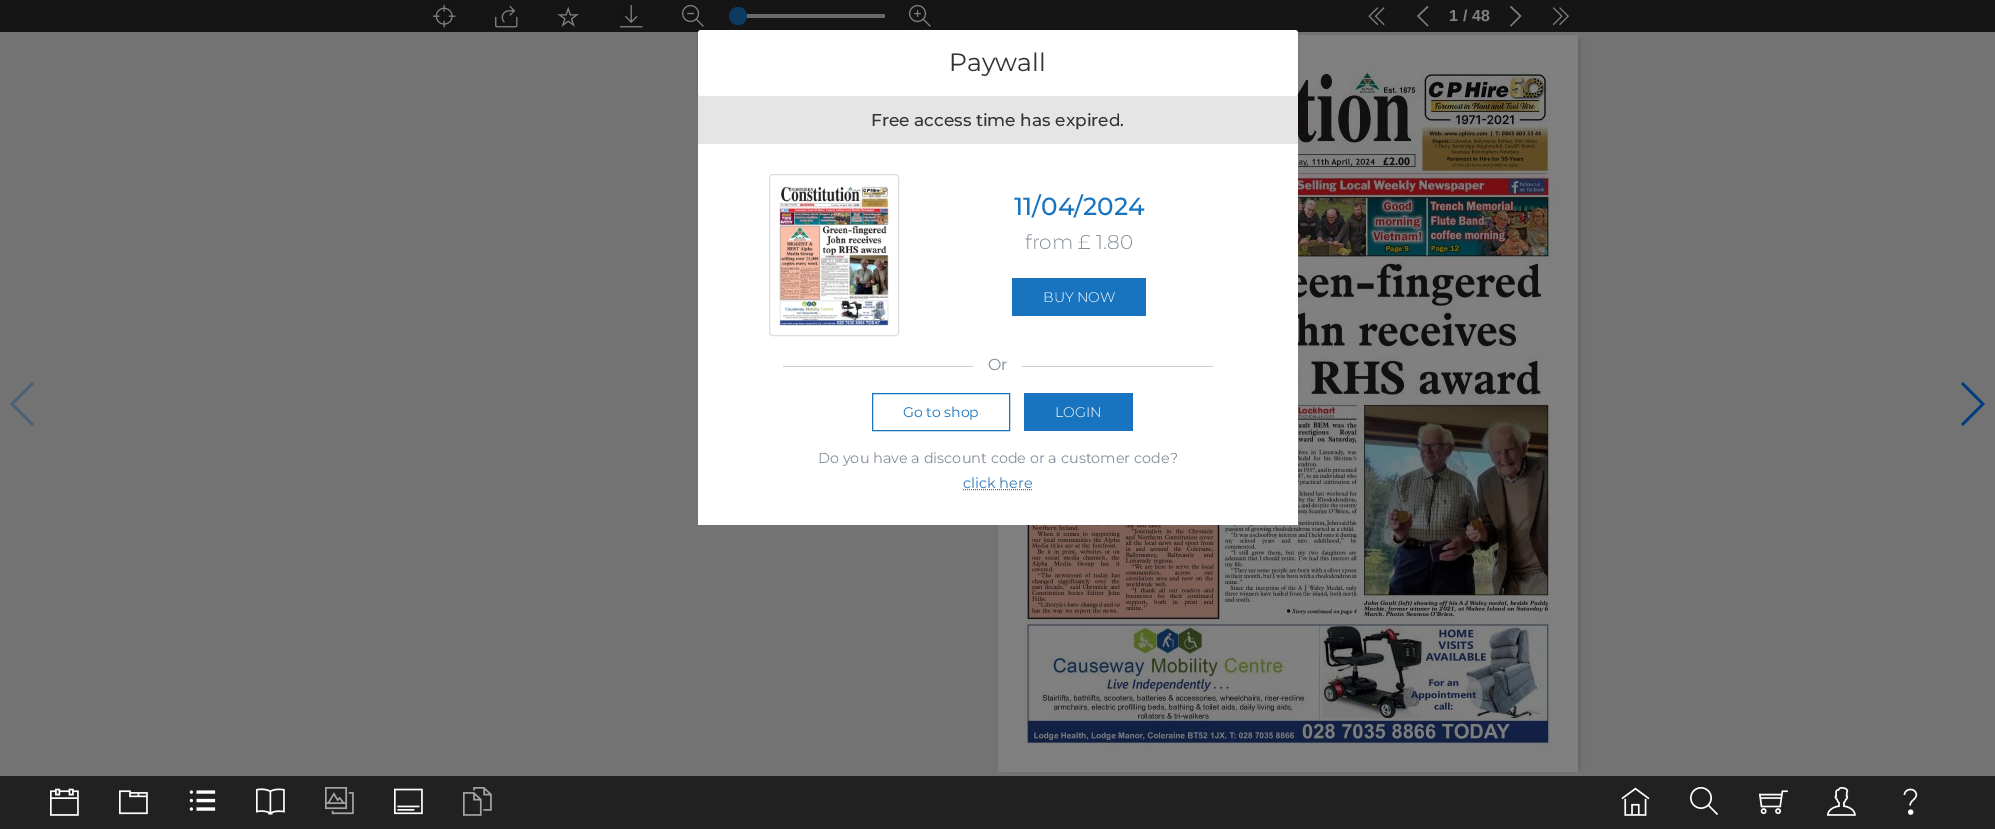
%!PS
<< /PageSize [1995 829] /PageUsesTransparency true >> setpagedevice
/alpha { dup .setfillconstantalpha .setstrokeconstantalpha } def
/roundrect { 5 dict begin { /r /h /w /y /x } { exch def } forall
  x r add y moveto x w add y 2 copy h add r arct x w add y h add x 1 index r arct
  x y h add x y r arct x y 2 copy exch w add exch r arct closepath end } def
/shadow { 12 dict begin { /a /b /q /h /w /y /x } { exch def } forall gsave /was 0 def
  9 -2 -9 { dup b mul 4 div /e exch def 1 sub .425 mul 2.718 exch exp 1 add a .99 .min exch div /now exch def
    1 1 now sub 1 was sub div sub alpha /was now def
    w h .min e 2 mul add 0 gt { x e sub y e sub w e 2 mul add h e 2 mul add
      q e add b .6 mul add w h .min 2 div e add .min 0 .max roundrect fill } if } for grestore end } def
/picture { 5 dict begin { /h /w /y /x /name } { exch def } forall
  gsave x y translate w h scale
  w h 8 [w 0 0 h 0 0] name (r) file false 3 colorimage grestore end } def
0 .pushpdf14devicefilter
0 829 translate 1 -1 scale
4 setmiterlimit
0.451 setgray
0 0 1995 829 rectfill
0 setgray
1007 39 574 731 0 3 0.14 shadow
0.082 setgray
0 0 1995 32 rectfill
(img1.rgb) 432 4 24 24 picture
(img2.rgb) 495 5 23 23 picture
(img3.rgb) 557 6 22 21 picture
(img4.rgb) 620 5 23 23 picture
(img5.rgb) 682 5 22 22 picture
0.416 setgray
729 14 156 4 1.5 roundrect fill
0.047 0.227 0.376 setrgbcolor
newpath 738 16 9 0 360 arc closepath fill
(img6.rgb) 909 5 22 22 picture
(img7.rgb) 1368 7 17 19 picture
0.502 setgray
newpath 1419 16 moveto 1428.5 25.5 lineto 1427.5 26.5 lineto 1417 16 lineto 1427.5 6 lineto 1428.5 7 lineto closepath fill
/LiberationSans-Bold [16 0 0 -16 0 0] selectfont
1449 21 moveto (1) show
1463 21 moveto (/ 48) show
newpath 1521.5 16 moveto 1511 26.5 lineto 1510 25.5 lineto 1519.5 16 lineto 1510 7 lineto 1511 6 lineto closepath fill
(img8.rgb) 1552 7 17 19 picture
0.294 0.376 0.467 setrgbcolor
newpath 10 404 moveto 32 382 lineto 34 384 lineto 14 404 lineto 34 424 lineto 32 426 lineto closepath fill
(img9.rgb) 998 35 580 737 picture
0 0.239 0.502 setrgbcolor
newpath 1985 404 moveto 1963 426 lineto 1961 424 lineto 1981 404 lineto 1961 384 lineto 1963 382 lineto closepath fill
0 setgray
698 31 600 67 3 1.5 0.15 shadow
1 setgray
698 30 600 67 3 roundrect fill
0.898 setgray
698 96 600 48 rectfill
/Montserrat-Regular [25 0 0 -25 0 0] selectfont
0.2 setgray
949 71 moveto (Paywall) show
/Montserrat-Medium [17 0 0 -17 0 0] selectfont
871 126 moveto (Free access time has expired.) show
1 setgray
698 144 600 381 rectfill
0.867 setgray
769.5 174.5 129 161 3.5 roundrect stroke
(img10.rgb) 779 186 111 140 picture
/Montserrat-Medium [24.75 0 0 -24.75 0 0] selectfont
0.098 0.455 0.749 setrgbcolor
1014 215 moveto (11/04/2024) show
/Montserrat-Light [20 0 0 -20 0 0] selectfont
0.514 0.561 0.596 setrgbcolor
1025 249 moveto (from £ 1.80) show
0.098 0.455 0.749 setrgbcolor
1012 278 134 38 rectfill
/Montserrat-Light [14 0 0 -14 0 0] selectfont
1 setgray
1043 302 moveto (BUY NOW) show
0.8 setgray
783 366 430 1 rectfill
1 setgray
973 366 49 1 rectfill
/Montserrat-Regular [16 0 0 -16 0 0] selectfont
0.514 0.561 0.596 setrgbcolor
988 370 moveto (Or) show
0.094 0.455 0.749 setrgbcolor
872.5 393.5 137 37 rectstroke
/Montserrat-Regular [14 0 0 -14 0 0] selectfont
0.098 0.455 0.749 setrgbcolor
903 417 moveto (Go to shop) show
1024 393 109 38 rectfill
/Montserrat-Light [14 0 0 -14 0 0] selectfont
1 setgray
1055 417 moveto (LOGIN) show
/Montserrat-Regular [14.4 0 0 -14.4 0 0] selectfont
0.514 0.561 0.596 setrgbcolor
818 463 moveto (Do you have a discount code or a customer code?) show
0.2 0.478 0.718 setrgbcolor
963 488 moveto (click here) show
[1 1] 0 setdash
newpath 963 489.5 moveto 1032 489.5 lineto stroke
0.129 setgray
0 776 1995 53 rectfill
(img11.rgb) 50 788 29 28 picture
(img12.rgb) 119 790 29 25 picture
(img13.rgb) 189 790 27 21 picture
(img14.rgb) 256 788 29 27 picture
(img15.rgb) 325 787 29 28 picture
(img16.rgb) 394 788 29 27 picture
(img17.rgb) 463 787 29 29 picture
(img18.rgb) 1621 787 29 29 picture
(img19.rgb) 1690 787 28 28 picture
(img20.rgb) 1758 790 30 25 picture
(img21.rgb) 1827 787 29 29 picture
(img22.rgb) 1903 788 15 27 picture
.poppdf14devicefilter showpage
